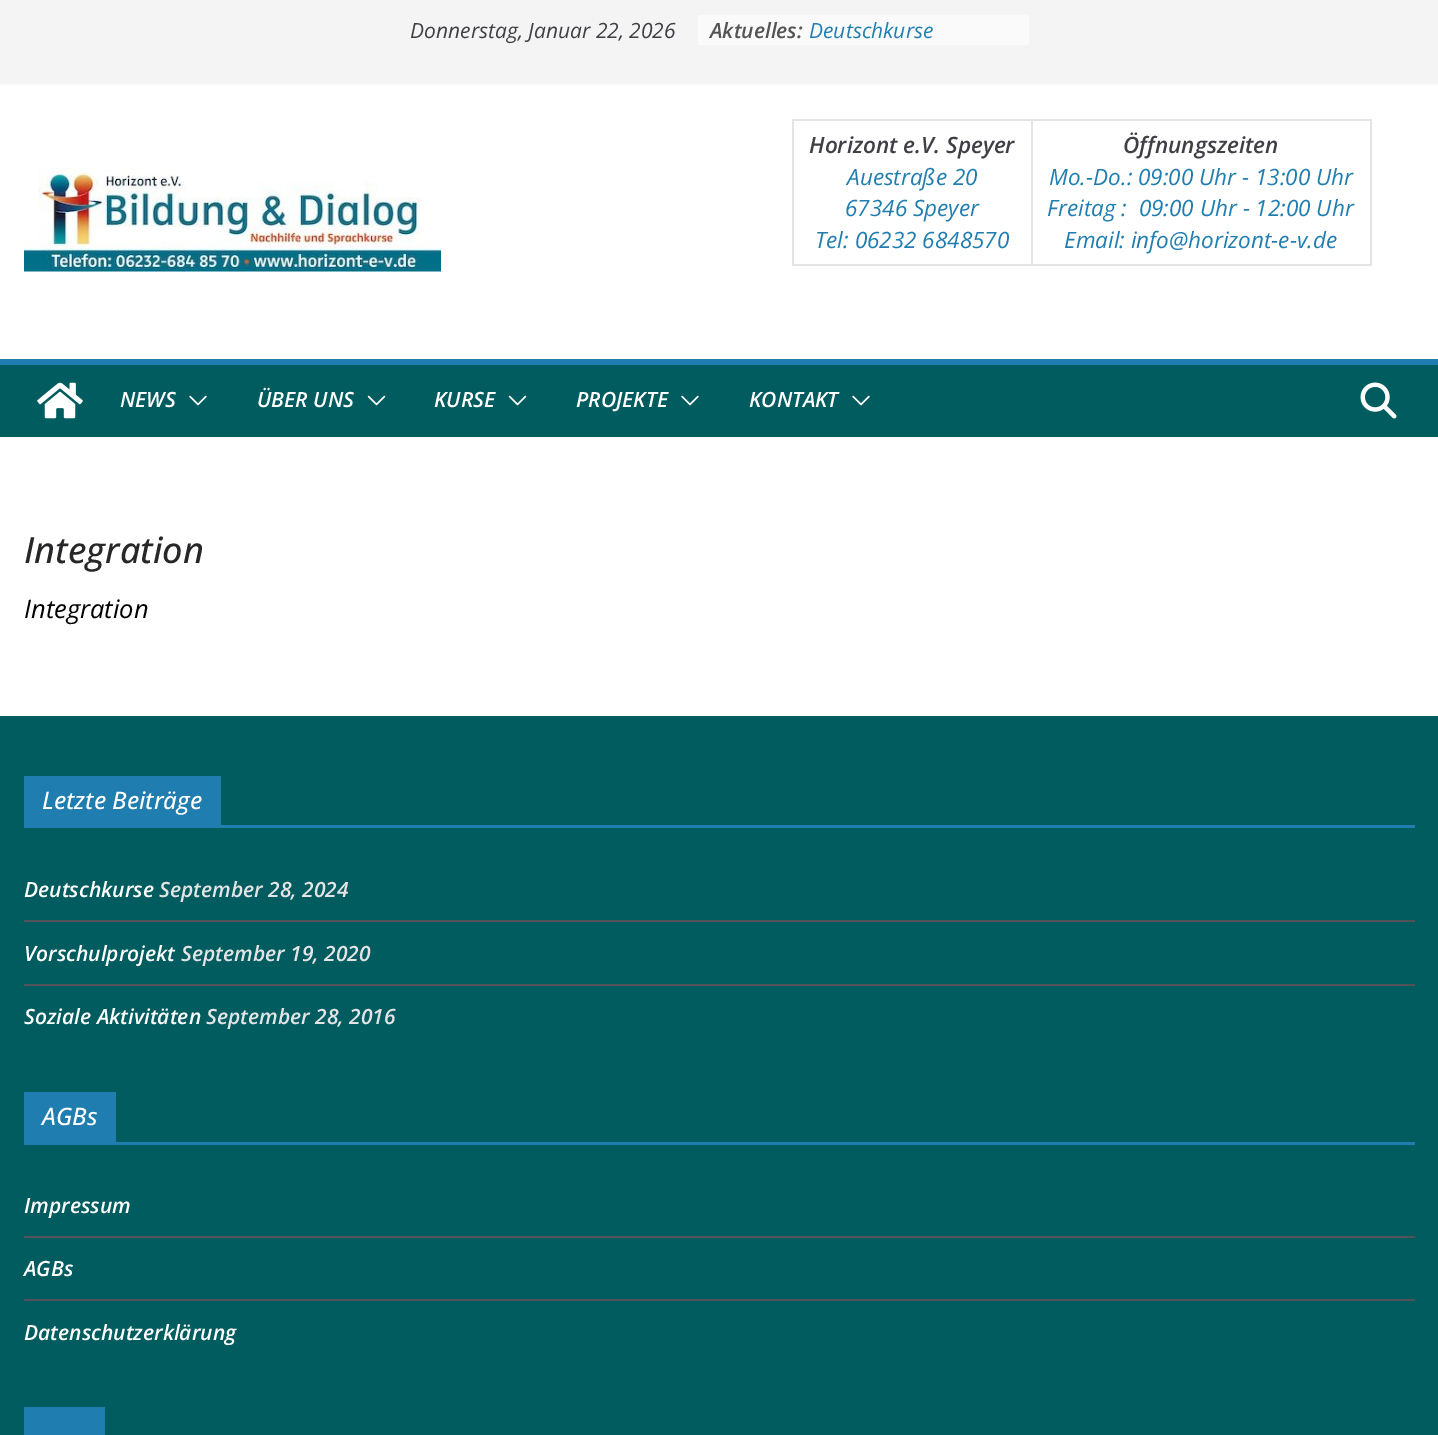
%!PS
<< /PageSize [1438 1435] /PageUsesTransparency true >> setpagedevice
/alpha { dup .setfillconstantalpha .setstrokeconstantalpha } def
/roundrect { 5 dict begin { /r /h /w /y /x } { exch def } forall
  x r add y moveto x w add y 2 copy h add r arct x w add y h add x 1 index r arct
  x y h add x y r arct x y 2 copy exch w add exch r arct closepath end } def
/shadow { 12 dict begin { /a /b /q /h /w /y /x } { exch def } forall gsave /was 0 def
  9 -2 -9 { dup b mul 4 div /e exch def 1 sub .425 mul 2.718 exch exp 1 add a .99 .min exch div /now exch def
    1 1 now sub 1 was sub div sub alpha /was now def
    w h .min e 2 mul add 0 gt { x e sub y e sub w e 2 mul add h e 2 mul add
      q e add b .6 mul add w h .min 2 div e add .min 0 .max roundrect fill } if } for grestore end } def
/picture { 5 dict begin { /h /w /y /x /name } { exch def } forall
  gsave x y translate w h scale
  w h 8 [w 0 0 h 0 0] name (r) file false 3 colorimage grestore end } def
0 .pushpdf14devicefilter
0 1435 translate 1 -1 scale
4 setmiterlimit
1 setgray
0 0 1438 1435 rectfill
0 setgray
0 0 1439 83 0 1.5 0.1 shadow
0.957 0.957 0.961 setrgbcolor
0 0 1438 83 rectfill
/OpenSans-Italic [21 0 0 -21 0 0] selectfont
0.247 0.247 0.275 setrgbcolor
410 38 moveto (Donnerstag, Januar 22, 2026) show
0.98 setgray
698 15 331 30 rectfill
/OpenSans-SemiBoldItalic [21 0 0 -21 0 0] selectfont
0.333 setgray
710 38 moveto (Aktuelles:) show
/OpenSans-Italic [21 0 0 -21 0 0] selectfont
0.125 0.49 0.686 setrgbcolor
809 38 moveto (Deutschkurse) show
(img1.rgb) 24 168 417 104 picture
0.894 0.894 0.906 setrgbcolor
1031 119 340 2 rectfill
1370 119 2 147 rectfill
1031 264 340 2 rectfill
1031 119 2 147 rectfill
792 119 240 2 rectfill
792 264 240 2 rectfill
792 119 2 147 rectfill
/OpenSans-SemiBoldItalic [22.5 0 0 -22.5 0 0] selectfont
0.247 0.247 0.275 setrgbcolor
809 153 moveto (Horizont e.V. Speyer) show
/OpenSans-Italic [22.5 0 0 -22.5 0 0] selectfont
0.125 0.49 0.686 setrgbcolor
847 185 moveto (Auestraße 20) show
845 216 moveto (67346 Speyer) show
815 248 moveto (Tel: 06232 6848570) show
/OpenSans-SemiBoldItalic [22.5 0 0 -22.5 0 0] selectfont
0.247 0.247 0.275 setrgbcolor
1123 153 moveto (Öffnungszeiten) show
/OpenSans-Italic [22.5 0 0 -22.5 0 0] selectfont
0.125 0.49 0.686 setrgbcolor
1049 185 moveto (Mo.-Do.: 09:00 Uhr - 13:00 Uhr) show
1047 216 moveto (Freitag :  09:00 Uhr - 12:00 Uhr) show
1064 248 moveto (Email: info@horizont-e-v.de) show
0 0.361 0.369 setrgbcolor
0 365 1438 72 rectfill
0.125 0.49 0.686 setrgbcolor
0 359 1438 6 rectfill
(img2.rgb) 37 382 46 37 picture
/OpenSans-SemiBoldItalic [21 0 0 -21 0 0] selectfont
1 setgray
120 407 moveto (NEWS) show
(img3.rgb) 189 395 18 11 picture
257 407 moveto (ÜBER UNS) show
(img4.rgb) 367 395 19 11 picture
434 407 moveto (KURSE) show
(img4.rgb) 508 395 19 11 picture
576 407 moveto (PROJEKTE) show
(img3.rgb) 681 395 18 11 picture
749 407 moveto (KONTAKT) show
(img3.rgb) 852 395 18 11 picture
(img5.rgb) 1360 382 37 37 picture
/OpenSans-MediumItalic [36 0 0 -36 0 0] selectfont
0.153 0.153 0.165 setrgbcolor
24 563 moveto (Integration) show
/OpenSans-Italic [25.5 0 0 -25.5 0 0] selectfont
0 setgray
24 618 moveto (Integration) show
0 0.361 0.369 setrgbcolor
0 716 1438 719 rectfill
0.125 0.49 0.686 setrgbcolor
24 825 1391 3 rectfill
24 776 197 49 rectfill
/OpenSans-MediumItalic [24 0 0 -24 0 0] selectfont
1 setgray
42 809 moveto (Letzte Beiträge) show
0.322 0.322 0.357 setrgbcolor
24 920 1391 2 rectfill
/OpenSans-SemiBoldItalic [21 0 0 -21 0 0] selectfont
1 setgray
24 897 moveto (Deutschkurse) show
0.894 0.894 0.906 setrgbcolor
159 897 moveto (September 28, 2024) show
0.322 0.322 0.357 setrgbcolor
24 984 1391 2 rectfill
1 setgray
24 961 moveto (Vorschulprojekt) show
0.894 0.894 0.906 setrgbcolor
181 961 moveto (September 19, 2020) show
1 setgray
24 1024 moveto (Soziale Aktivitäten) show
0.894 0.894 0.906 setrgbcolor
206 1024 moveto (September 28, 2016) show
0.125 0.49 0.686 setrgbcolor
24 1142 1391 3 rectfill
24 1092 92 50 rectfill
/OpenSans-MediumItalic [24 0 0 -24 0 0] selectfont
1 setgray
42 1125 moveto (AGBs) show
0.322 0.322 0.357 setrgbcolor
24 1236 1391 2 rectfill
/OpenSans-SemiBoldItalic [21 0 0 -21 0 0] selectfont
1 setgray
24 1213 moveto (Impressum) show
0.322 0.322 0.357 setrgbcolor
24 1299 1391 2 rectfill
1 setgray
24 1276 moveto (AGBs) show
24 1340 moveto (Datenschutzerklärung) show
0.125 0.49 0.686 setrgbcolor
24 1407 81 28 rectfill
.poppdf14devicefilter showpage
